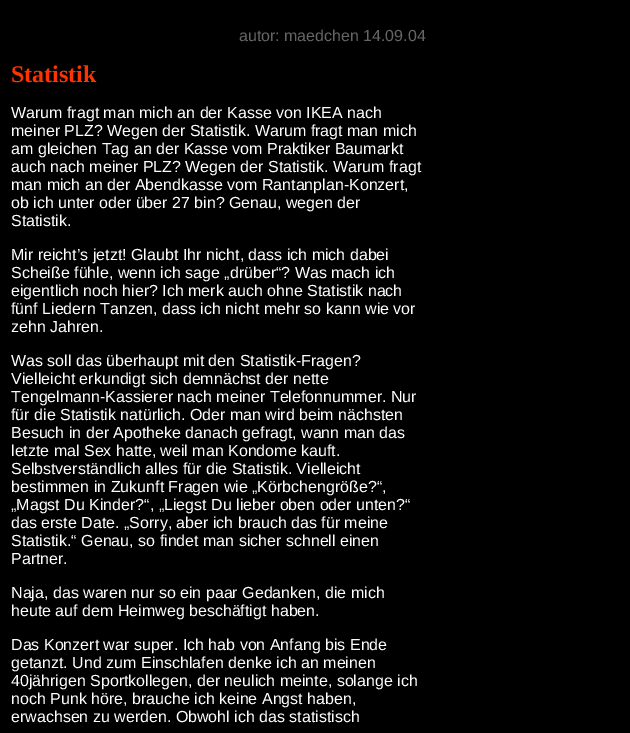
%!PS
<< /PageSize [630 733] >> setpagedevice
0 733 translate 1 -1 scale
4 setmiterlimit
0 setgray
0 0 630 733 rectfill
/LiberationSans-Regular [16 0 0 -16 0 0] selectfont
0.4 setgray
239 41 moveto (autor:) show
284 41 moveto (maedchen 14.09.04) show
/LiberationSerif-Bold [24 0 0 -24 0 0] selectfont
1 0.2 0 setrgbcolor
11 82 moveto (Statistik) show
/LiberationSans-Regular [16 0 0 -16 0 0] selectfont
1 setgray
11 118 moveto (Warum fragt man mich an der Kasse von IKEA nach) show
11 136 moveto (meiner PLZ? Wegen der Statistik. Warum fragt man mich) show
11 154 moveto (am gleichen Tag an der Kasse vom Praktiker Baumarkt) show
11 172 moveto (auch nach meiner PLZ? Wegen der Statistik. Warum fragt) show
11 190 moveto (man mich an der Abendkasse vom Rantanplan-Konzert,) show
11 208 moveto (ob ich unter oder über 27 bin? Genau, wegen der) show
11 226 moveto (Statistik.) show
11 260 moveto (Mir reicht’s jetzt! Glaubt Ihr nicht, dass ich mich dabei) show
11 278 moveto (Scheiße fühle, wenn ich sage „drüber“? Was mach ich) show
11 296 moveto (eigentlich noch hier? Ich merk auch ohne Statistik nach) show
11 314 moveto (fünf Liedern Tanzen, dass ich nicht mehr so kann wie vor) show
11 332 moveto (zehn Jahren.) show
11 366 moveto (Was soll das überhaupt mit den Statistik-Fragen?) show
11 384 moveto (Vielleicht erkundigt sich demnächst der nette) show
11 402 moveto (Tengelmann-Kassierer nach meiner Telefonnummer. Nur) show
11 420 moveto (für die Statistik natürlich. Oder man wird beim nächsten) show
11 438 moveto (Besuch in der Apotheke danach gefragt, wann man das) show
11 456 moveto (letzte mal Sex hatte, weil man Kondome kauft.) show
11 474 moveto (Selbstverständlich alles für die Statistik. Vielleicht) show
11 492 moveto (bestimmen in Zukunft Fragen wie „Körbchengröße?“,) show
11 510 moveto („Magst Du Kinder?“, „Liegst Du lieber oben oder unten?“) show
11 528 moveto (das erste Date. „Sorry, aber ich brauch das für meine) show
11 546 moveto (Statistik.“ Genau, so findet man sicher schnell einen) show
11 564 moveto (Partner.) show
11 598 moveto (Naja, das waren nur so ein paar Gedanken, die mich) show
11 616 moveto (heute auf dem Heimweg beschäftigt haben.) show
11 650 moveto (Das Konzert war super. Ich hab von Anfang bis Ende) show
11 668 moveto (getanzt. Und zum Einschlafen denke ich an meinen) show
11 686 moveto (40jährigen Sportkollegen, der neulich meinte, solange ich) show
11 704 moveto (noch Punk höre, brauche ich keine Angst haben,) show
11 722 moveto (erwachsen zu werden. Obwohl ich das statistisch) show
showpage
